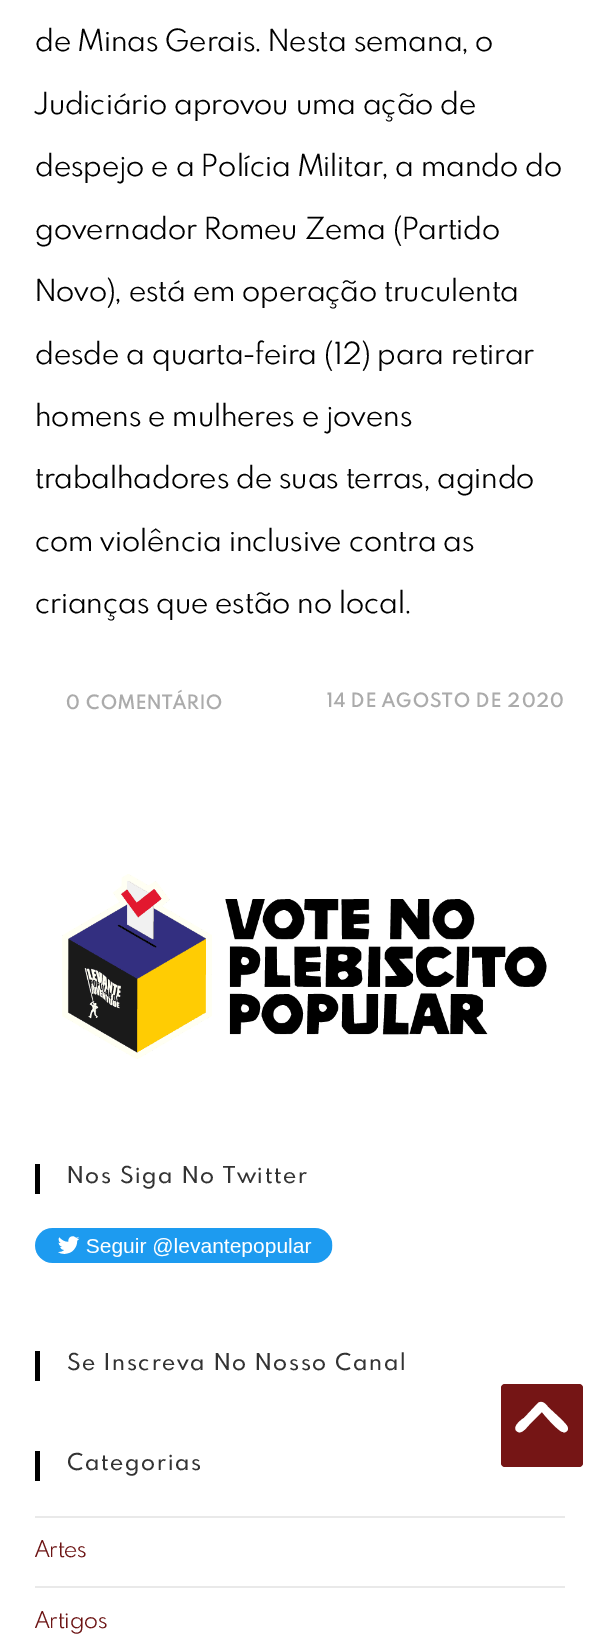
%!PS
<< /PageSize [599 1643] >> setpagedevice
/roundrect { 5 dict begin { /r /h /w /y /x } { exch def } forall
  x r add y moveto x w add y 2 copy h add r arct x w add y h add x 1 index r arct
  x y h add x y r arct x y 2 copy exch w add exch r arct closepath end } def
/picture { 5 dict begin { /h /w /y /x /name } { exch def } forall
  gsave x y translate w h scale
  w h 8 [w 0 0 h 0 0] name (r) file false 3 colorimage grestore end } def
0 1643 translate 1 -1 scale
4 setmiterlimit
1 setgray
0 0 599 1643 rectfill
/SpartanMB-Regular [29.75 0 0 -29.75 0 0] selectfont
0 setgray
35 51 moveto (de Minas Gerais. Nesta semana, o) show
35 114 moveto (Judiciário aprovou uma ação de) show
35 176 moveto (despejo e a Polícia Militar, a mando do) show
35 239 moveto (governador Romeu Zema \(Partido) show
35 301 moveto (Novo\), está em operação truculenta) show
35 364 moveto (desde a quarta-feira \(12\) para retirar) show
35 426 moveto (homens e mulheres e jovens) show
35 488 moveto (trabalhadores de suas terras, agindo) show
35 551 moveto (com violência inclusive contra as) show
35 613 moveto (crianças que estão no local.) show
/SpartanMB-SemiBold [19.25 0 0 -19.25 0 0] selectfont
0.671 setgray
66 709 moveto 1.05 0 (0 COMENTÁRIO) ashow
326 707 moveto 1.05 0 (14 DE AGOSTO DE 2020) ashow
(img1.rgb) 62 874 485 185 picture
0 setgray
35 1164 5 30 rectfill
/SpartanMB-Medium [22.75 0 0 -22.75 0 0] selectfont
0.2 setgray
67 1183 moveto 1.75 0 (Nos Siga No Twitter) ashow
(img2.rgb) 35 1228 298 35 picture
0 setgray
35 1351 5 30 rectfill
0.2 setgray
67 1370 moveto 1.75 0 (Se Inscreva No Nosso Canal) ashow
0 setgray
35 1451 5 30 rectfill
0.2 setgray
67 1470 moveto 1.75 0 (Categorias) ashow
0.914 setgray
35 1516 530 2 rectfill
35 1586 530 2 rectfill
/SpartanMB-Regular [22.75 0 0 -22.75 0 0] selectfont
0.427 0.078 0.078 setrgbcolor
35 1557 moveto (Artes) show
35 1628 moveto (Artigos) show
0.459 0.082 0.082 setrgbcolor
501 1384 82 83 4 roundrect fill
1 setgray
newpath 538 1403 moveto 542 1400 546 1404 548 1407 curveto 563 1421 lineto 565 1424 570 1427 567 1431 curveto 566 1432 564 1433 563 1432 curveto 559 1432 545 1416 542 1412 curveto 529 1425 lineto 527 1427 522 1434 518 1432 curveto 510 1428 522 1419 524 1418 curveto closepath fill
showpage
